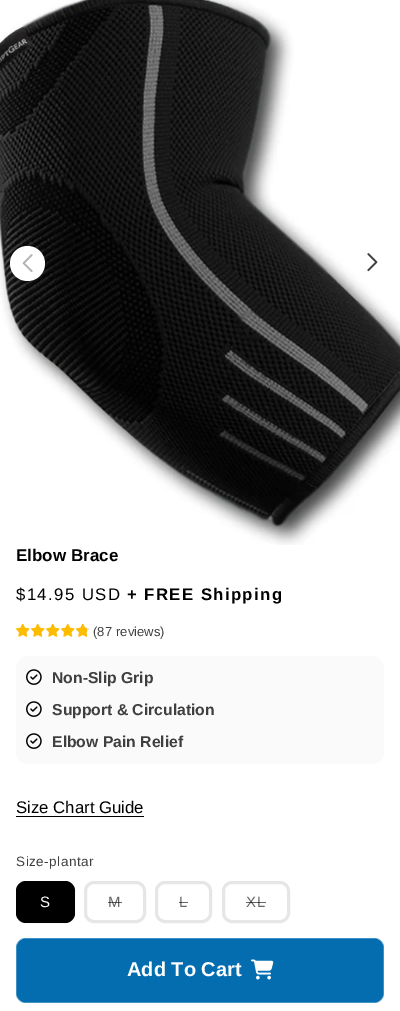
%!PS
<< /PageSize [400 1011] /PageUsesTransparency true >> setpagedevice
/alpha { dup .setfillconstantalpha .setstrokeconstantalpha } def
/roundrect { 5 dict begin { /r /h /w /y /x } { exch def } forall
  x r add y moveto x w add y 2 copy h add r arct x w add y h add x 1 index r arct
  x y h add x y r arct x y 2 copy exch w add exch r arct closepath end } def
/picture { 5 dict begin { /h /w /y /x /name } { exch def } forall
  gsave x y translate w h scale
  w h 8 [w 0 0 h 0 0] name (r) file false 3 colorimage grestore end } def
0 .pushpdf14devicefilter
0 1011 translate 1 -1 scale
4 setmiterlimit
1 setgray
0 0 400 1011 rectfill
(img1.rgb) 0 0 400 545 picture
newpath 27.5 263.5 17.5 0 360 arc closepath fill
(img2.rgb) 22 254 11 18 picture
(img3.rgb) 367 253 11 19 picture
/LiberationSans-Bold [17 0 0 -17 0 0] selectfont
0 setgray
16 561 moveto (Elbow Brace) show
/LiberationSans-Regular [16.75 0 0 -16.75 0 0] selectfont
16 600 moveto 1.4 0 ($14.95 USD) ashow
/LiberationSans-Bold [16.75 0 0 -16.75 0 0] selectfont
127 600 moveto 1.4 0 (+ FREE Shipping) ashow
(img4.rgb) 16 623 14 14 picture
(img4.rgb) 31 623 14 14 picture
(img4.rgb) 46 623 14 14 picture
(img4.rgb) 61 623 14 14 picture
(img5.rgb) 76 624 14 13 picture
(img6.rgb) 76 624 11 13 picture
/LiberationSans-Regular [13 0 0 -13 0 0] selectfont
0.247 setgray
93 636 moveto (\(87) show
116 636 moveto (reviews\)) show
0.98 setgray
16 656 368 108 12 roundrect fill
(img7.rgb) 26 669 16 16 picture
/LiberationSans-Bold [15.75 0 0 -15.75 0 0] selectfont
0.247 setgray
52 683 moveto (Non-Slip Grip) show
(img7.rgb) 26 701 16 16 picture
52 715 moveto (Support & Circulation) show
(img7.rgb) 26 733 16 16 picture
52 747 moveto (Elbow Pain Relief) show
/LiberationSans-Regular [16.75 0 0 -16.75 0 0] selectfont
0 setgray
16 813 moveto (Size Chart Guide) show
16 816 128 1 rectfill
/LiberationSans-Regular [13.5 0 0 -13.5 0 0] selectfont
0.247 setgray
16 866 moveto 0.5 0 (Size-plantar) ashow
0 setgray
16 881 59 42 10 roundrect fill
0.1 alpha
3 setlinewidth
17.5 882.5 56 39 8.5 roundrect stroke
/LiberationSans-Regular [15 0 0 -15 0 0] selectfont
1 alpha
1 setgray
40 907 moveto 1 0 (S) ashow
0.902 setgray
85.5 882.5 59 39 8.5 roundrect stroke
0.4 setgray
108 907 moveto 1 0 (M) ashow
0.6 alpha
0 setgray
108 902 14 1 rectfill
1 alpha
0.902 setgray
156.5 882.5 54 39 8.5 roundrect stroke
0.4 setgray
179 907 moveto 1 0 (L) ashow
0.6 alpha
0 setgray
179 902 9 1 rectfill
1 alpha
0.902 setgray
223.5 882.5 65 39 8.5 roundrect stroke
0.4 setgray
246 907 moveto 1 0 (XL) ashow
0.6 alpha
0 setgray
246 902 20 1 rectfill
1 alpha
0.012 0.427 0.69 setrgbcolor
16 938 368 65 10 roundrect fill
(img8.rgb) 251 959 23 21 picture
0.45 alpha
1 setgray
0.3 setlinewidth
16.15 938.15 367.7 64.7 9.85 roundrect stroke
/LiberationSans-Bold [20 0 0 -20 0 0] selectfont
1 alpha
127 976 moveto (Add To Cart) show
.poppdf14devicefilter showpage
